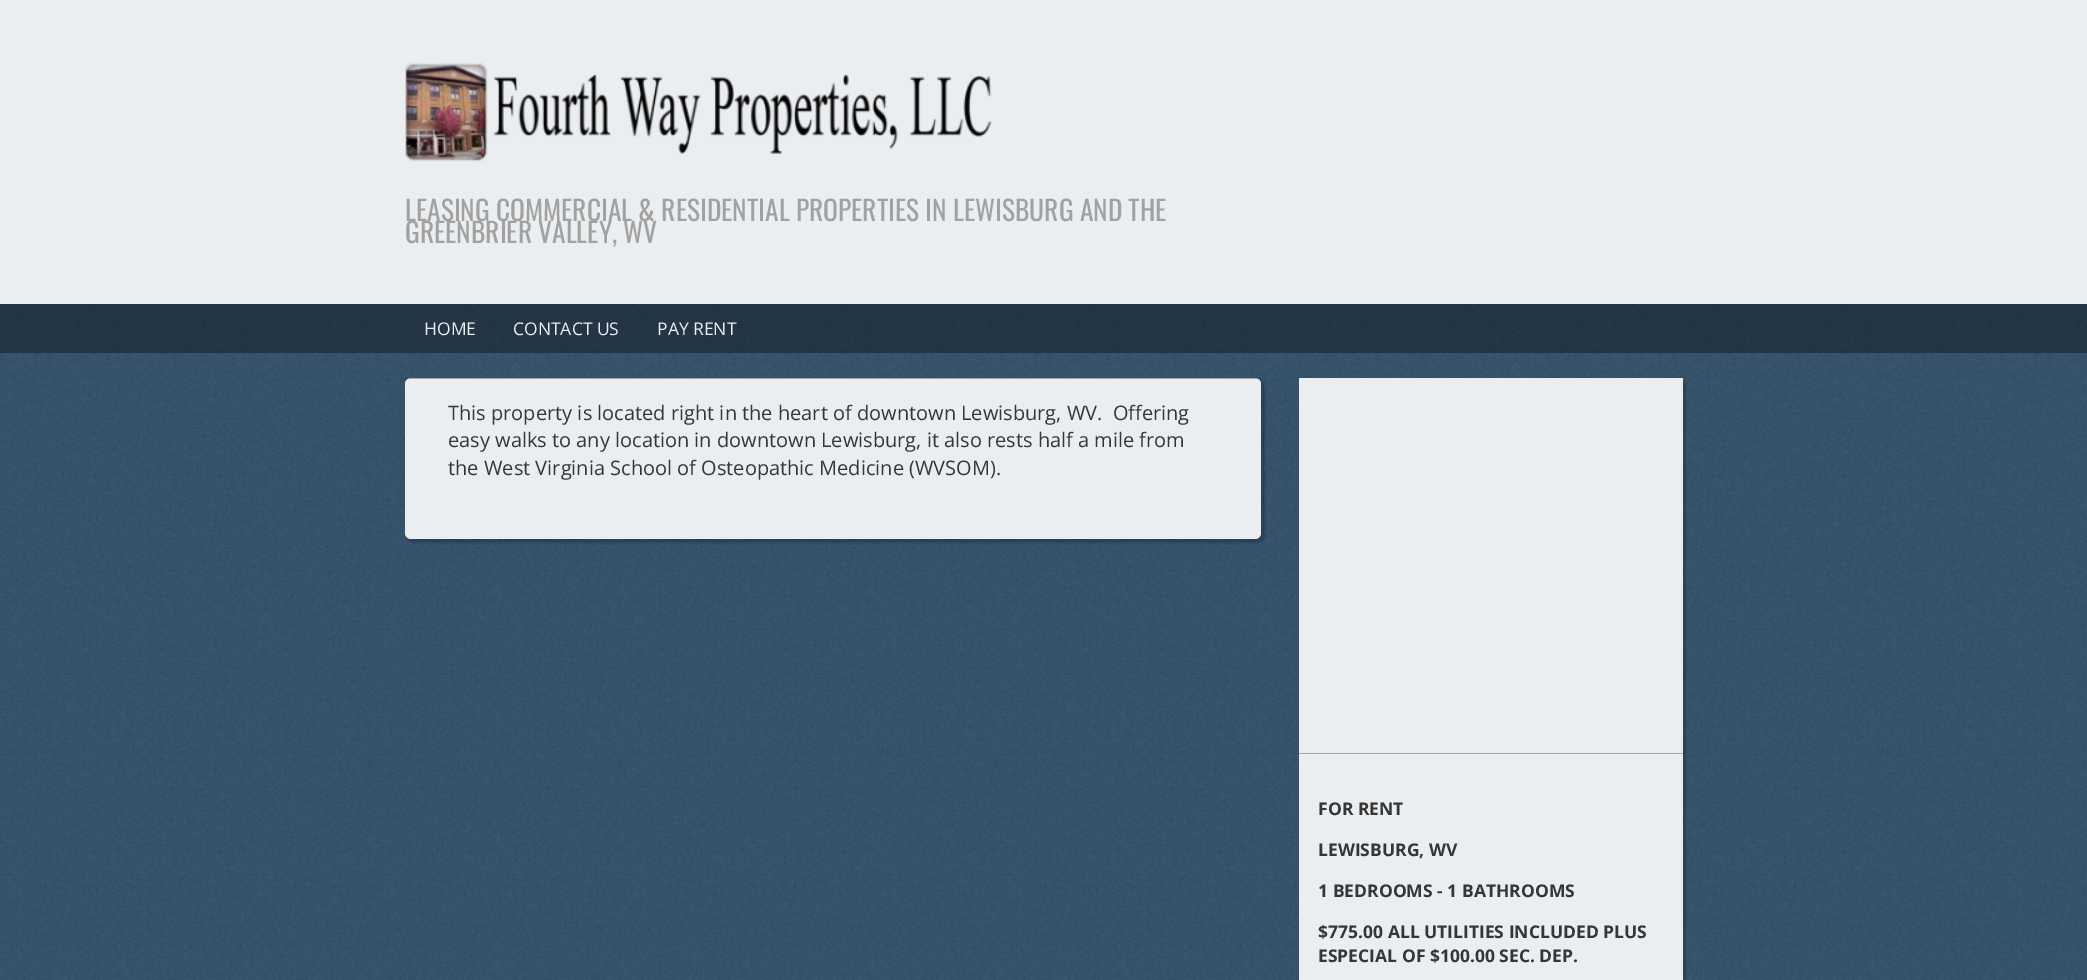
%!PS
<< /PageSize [2087 980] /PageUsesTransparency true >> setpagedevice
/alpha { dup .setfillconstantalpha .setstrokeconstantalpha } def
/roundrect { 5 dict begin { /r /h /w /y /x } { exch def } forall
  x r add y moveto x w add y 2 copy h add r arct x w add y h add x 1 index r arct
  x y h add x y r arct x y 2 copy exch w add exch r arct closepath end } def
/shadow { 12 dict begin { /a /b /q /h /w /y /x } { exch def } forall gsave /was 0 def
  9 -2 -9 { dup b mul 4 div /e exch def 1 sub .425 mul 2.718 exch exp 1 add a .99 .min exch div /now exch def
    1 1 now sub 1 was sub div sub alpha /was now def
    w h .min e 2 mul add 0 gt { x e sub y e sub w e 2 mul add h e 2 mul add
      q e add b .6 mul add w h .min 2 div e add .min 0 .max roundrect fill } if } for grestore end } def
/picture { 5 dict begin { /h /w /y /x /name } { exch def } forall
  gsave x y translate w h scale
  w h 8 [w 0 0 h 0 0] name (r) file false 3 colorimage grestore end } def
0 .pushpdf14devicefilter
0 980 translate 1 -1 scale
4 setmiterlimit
0.169 0.298 0.424 setrgbcolor
0 0 2087 980 rectfill
(img1.rgb) 0 0 2087 980 picture
0.9 alpha
1 setgray
0 0 2087 304 rectfill
1 alpha
(img2.rgb) 405 62 587 100 picture
/Oswald-Regular [27.5 0 0 -27.5 0 0] selectfont
0.631 setgray
405 221 moveto (LEASING COMMERCIAL & RESIDENTIAL PROPERTIES IN LEWISBURG AND THE) show
405 243 moveto (GREENBRIER VALLEY, WV) show
0.35 alpha
0 setgray
0 304 2087 49 rectfill
/OpenSans-Regular [17.5 0 0 -17.5 0 0] selectfont
1 alpha
0.922 0.929 0.941 setrgbcolor
424 335 moveto (HOME) show
513 335 moveto (CONTACT US) show
657 335 moveto (PAY RENT) show
0 setgray
406 379 859 164 8 1 0.2 shadow
0.922 0.933 0.945 setrgbcolor
405 378 856 161 6 roundrect fill
0.3 alpha
0 setgray
405 378 856 1 rectfill
/OpenSans-Regular [20 0 0 -20 0 0] selectfont
1 alpha
0.212 setgray
448 420 moveto (This property is located right in the heart of downtown Lewisburg, WV.  Offering) show
448 447 moveto (easy walks to any location in downtown Lewisburg, it also rests half a mile from) show
448 475 moveto (the West Virginia School of Osteopathic Medicine \(WVSOM\).) show
0 setgray
1300 379 386 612 8 1 0.2 shadow
0.922 0.933 0.945 setrgbcolor
1299 754 384 226 rectfill
1299 378 384 375 rectfill
0.647 0.655 0.663 setrgbcolor
1299 753 384 1 rectfill
/OpenSans-Bold [17.5 0 0 -17.5 0 0] selectfont
0.212 setgray
1318 815 moveto (FOR RENT) show
1318 856 moveto (LEWISBURG, WV) show
1318 897 moveto (1 BEDROOMS - 1 BATHROOMS) show
1318 938 moveto ($775.00 ALL UTILITIES INCLUDED PLUS) show
1318 962 moveto (ESPECIAL OF $100.00 SEC. DEP.) show
.poppdf14devicefilter showpage
